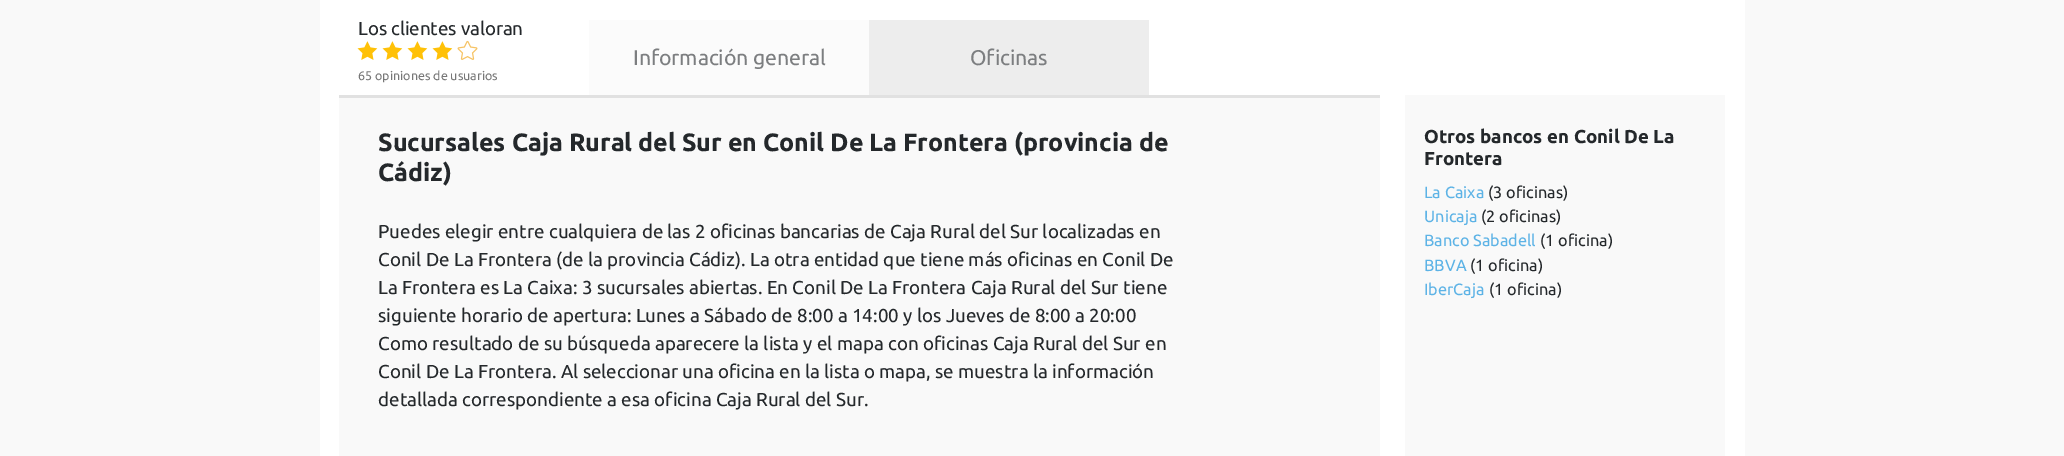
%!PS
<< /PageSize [2064 456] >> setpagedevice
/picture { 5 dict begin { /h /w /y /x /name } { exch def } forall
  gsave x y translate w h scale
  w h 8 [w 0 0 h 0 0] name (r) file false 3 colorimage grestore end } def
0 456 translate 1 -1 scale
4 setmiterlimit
0.976 setgray
0 0 2064 456 rectfill
1 setgray
320 0 1425 456 rectfill
/Ubuntu-Regular [18.75 0 0 -18.75 0 0] selectfont
0.141 0.157 0.169 setrgbcolor
358 35 moveto -0.1 0 (Los clientes valoran) ashow
(img1.rgb) 357 41 21 19 picture
(img1.rgb) 382 41 21 19 picture
(img1.rgb) 407 41 21 19 picture
(img1.rgb) 432 41 21 19 picture
(img2.rgb) 457 40 21 20 picture
/Ubuntu-Regular [12.5 0 0 -12.5 0 0] selectfont
0.467 setgray
358 80 moveto (65 opiniones de usuarios) show
0.984 setgray
589 20 280 75 rectfill
/Ubuntu-Regular [21.25 0 0 -21.25 0 0] selectfont
0.486 0.494 0.502 setrgbcolor
633 65 moveto -0.1 0 (Información general) ashow
0.929 setgray
869 20 280 75 rectfill
0.486 0.494 0.502 setrgbcolor
970 65 moveto -0.1 0 (Oficinas) ashow
0.976 setgray
339 98 1041 358 rectfill
0.882 setgray
339 95 1041 3 rectfill
/Ubuntu-Bold [25 0 0 -25 0 0] selectfont
0.141 0.157 0.169 setrgbcolor
378 151 moveto (Sucursales Caja Rural del Sur en Conil De La Frontera \(provincia de) show
378 181 moveto (Cádiz\)) show
/Ubuntu-Regular [18.75 0 0 -18.75 0 0] selectfont
378 238 moveto (Puedes elegir entre cualquiera de las 2 oficinas bancarias de Caja Rural del Sur localizadas en) show
378 266 moveto (Conil De La Frontera \(de la provincia Cádiz\). La otra entidad que tiene más oficinas en Conil De) show
378 294 moveto (La Frontera es La Caixa: 3 sucursales abiertas. En Conil De La Frontera Caja Rural del Sur tiene) show
378 322 moveto (siguiente horario de apertura: Lunes a Sábado de 8:00 a 14:00 y los Jueves de 8:00 a 20:00) show
378 350 moveto (Como resultado de su búsqueda aparecere la lista y el mapa con oficinas Caja Rural del Sur en) show
378 378 moveto (Conil De La Frontera. Al seleccionar una oficina en la lista o mapa, se muestra la información) show
378 406 moveto (detallada correspondiente a esa oficina Caja Rural del Sur.) show
0.976 setgray
1405 95 320 361 rectfill
/Ubuntu-Bold [18.75 0 0 -18.75 0 0] selectfont
0.141 0.157 0.169 setrgbcolor
1424 143 moveto (Otros bancos en Conil De La) show
1424 165 moveto (Frontera) show
/Ubuntu-Regular [16.25 0 0 -16.25 0 0] selectfont
0.365 0.702 0.902 setrgbcolor
1424 198 moveto (La Caixa) show
0.141 0.157 0.169 setrgbcolor
1488 198 moveto (\(3 oficinas\)) show
0.365 0.702 0.902 setrgbcolor
1424 222 moveto (Unicaja) show
0.141 0.157 0.169 setrgbcolor
1481 222 moveto (\(2 oficinas\)) show
0.365 0.702 0.902 setrgbcolor
1424 246 moveto (Banco Sabadell) show
0.141 0.157 0.169 setrgbcolor
1540 246 moveto (\(1 oficina\)) show
0.365 0.702 0.902 setrgbcolor
1424 271 moveto (BBVA) show
0.141 0.157 0.169 setrgbcolor
1470 271 moveto (\(1 oficina\)) show
0.365 0.702 0.902 setrgbcolor
1424 295 moveto (IberCaja) show
0.141 0.157 0.169 setrgbcolor
1489 295 moveto (\(1 oficina\)) show
showpage
